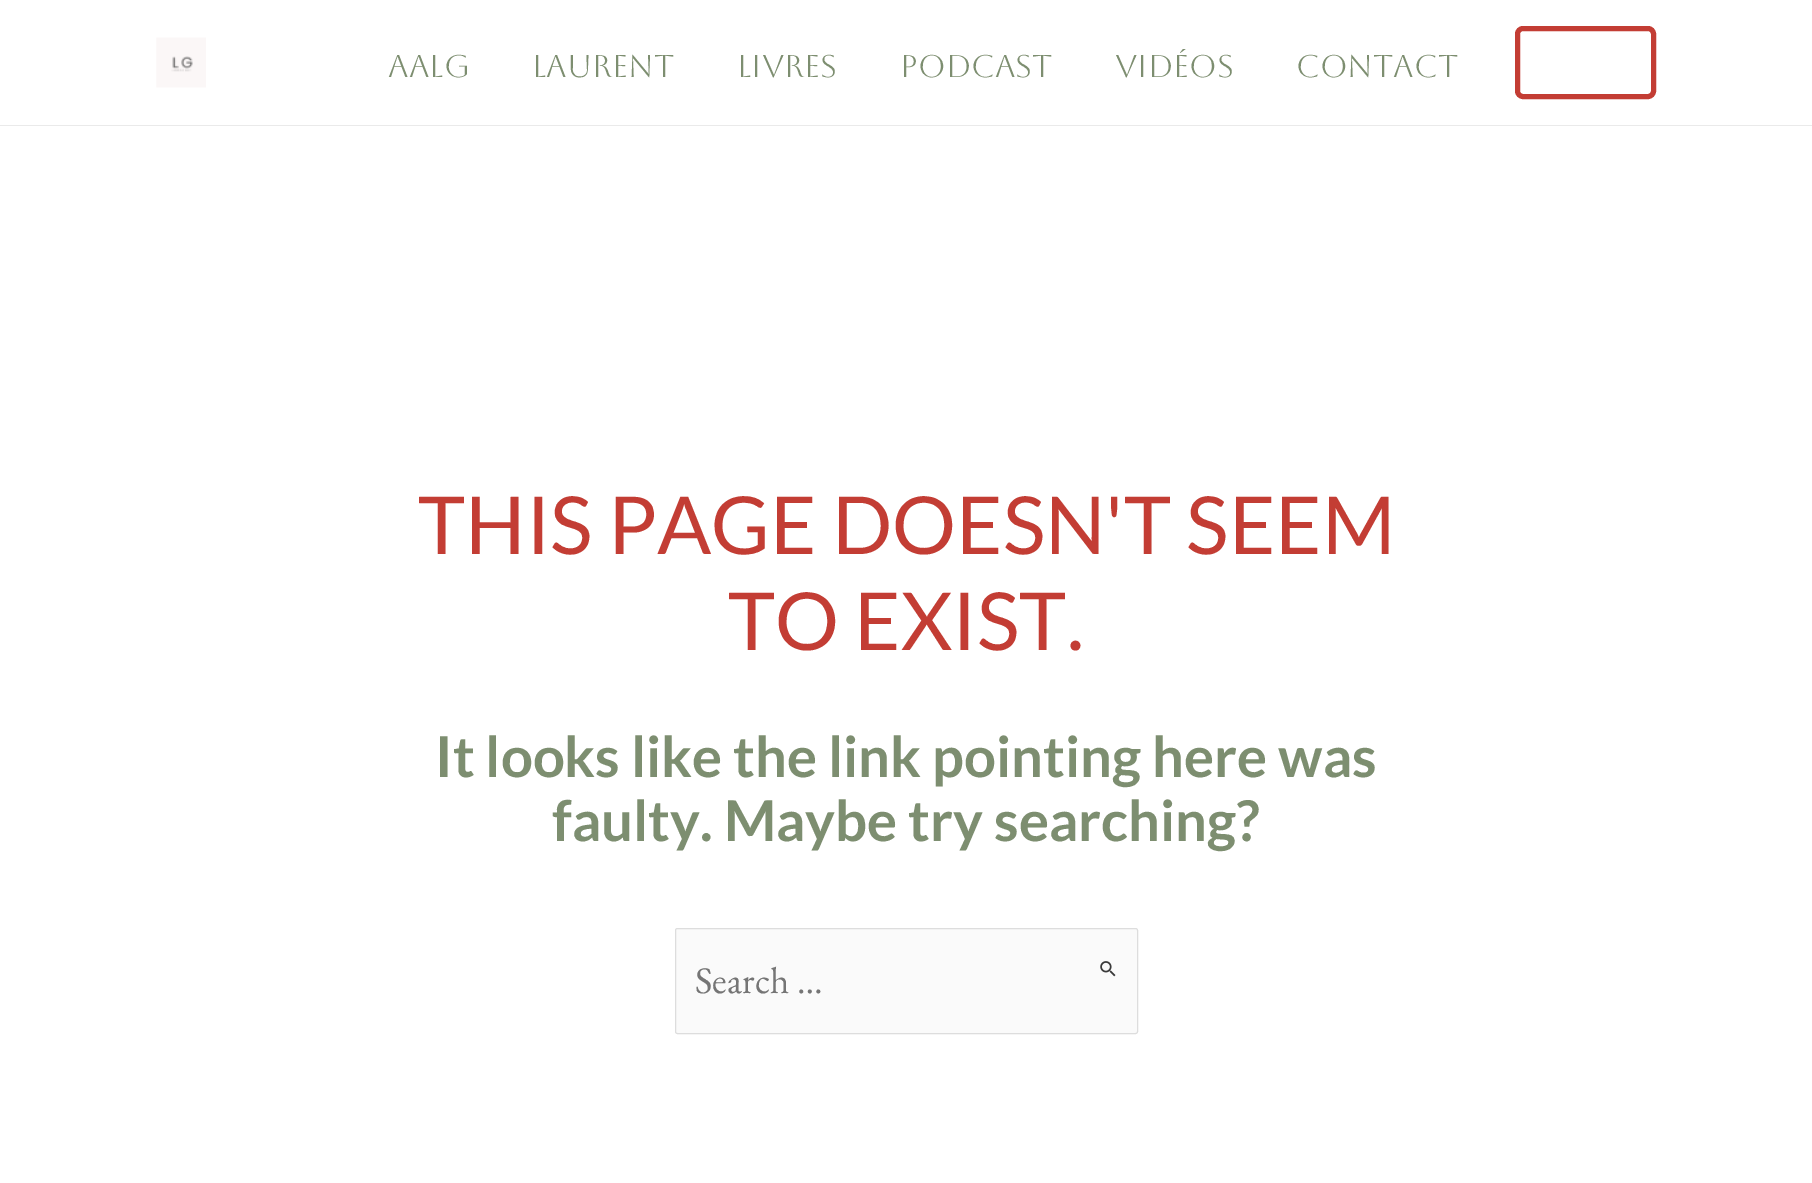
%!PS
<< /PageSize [1812 1183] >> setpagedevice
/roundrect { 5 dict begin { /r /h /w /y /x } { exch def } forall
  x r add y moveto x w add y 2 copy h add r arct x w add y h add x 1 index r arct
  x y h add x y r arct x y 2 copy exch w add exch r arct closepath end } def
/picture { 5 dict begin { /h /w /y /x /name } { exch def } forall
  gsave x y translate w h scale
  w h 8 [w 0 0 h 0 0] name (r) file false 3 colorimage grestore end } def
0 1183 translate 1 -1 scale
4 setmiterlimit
1 setgray
0 0 1812 1183 rectfill
0.918 setgray
0 125 1812 1 rectfill
(img1.rgb) 156 37 50 51 picture
/Aboreto-Regular [31.25 0 0 -31.25 0 0] selectfont
0.49 0.557 0.439 setrgbcolor
388 77 moveto (AALG) show
532 77 moveto (Laurent) show
737 77 moveto (Livres) show
900 77 moveto (Podcast) show
1115 77 moveto (Vidéos) show
1296 77 moveto (Contact) show
0.765 0.239 0.204 setrgbcolor
5 setlinewidth
1517.5 28.5 136 68 5.5 roundrect stroke
/Lato-Regular [80 0 0 -80 0 0] selectfont
418 554 moveto (THIS PAGE DOESN'T SEEM) show
728 650 moveto (TO EXIST.) show
/Lato-Bold [56.25 0 0 -56.25 0 0] selectfont
0.49 0.557 0.439 setrgbcolor
435 777 moveto (It looks like the link pointing here was) show
552 841 moveto (faulty. Maybe try searching?) show
0.98 setgray
675.5 928.5 462 105 2 roundrect gsave fill grestore
0.867 setgray
1 setlinewidth
stroke
/EBGaramond-Regular [37.5 0 0 -37.5 0 0] selectfont
0.459 setgray
695 993 moveto (Search …) show
(img2.rgb) 1100 961 16 16 picture
showpage
